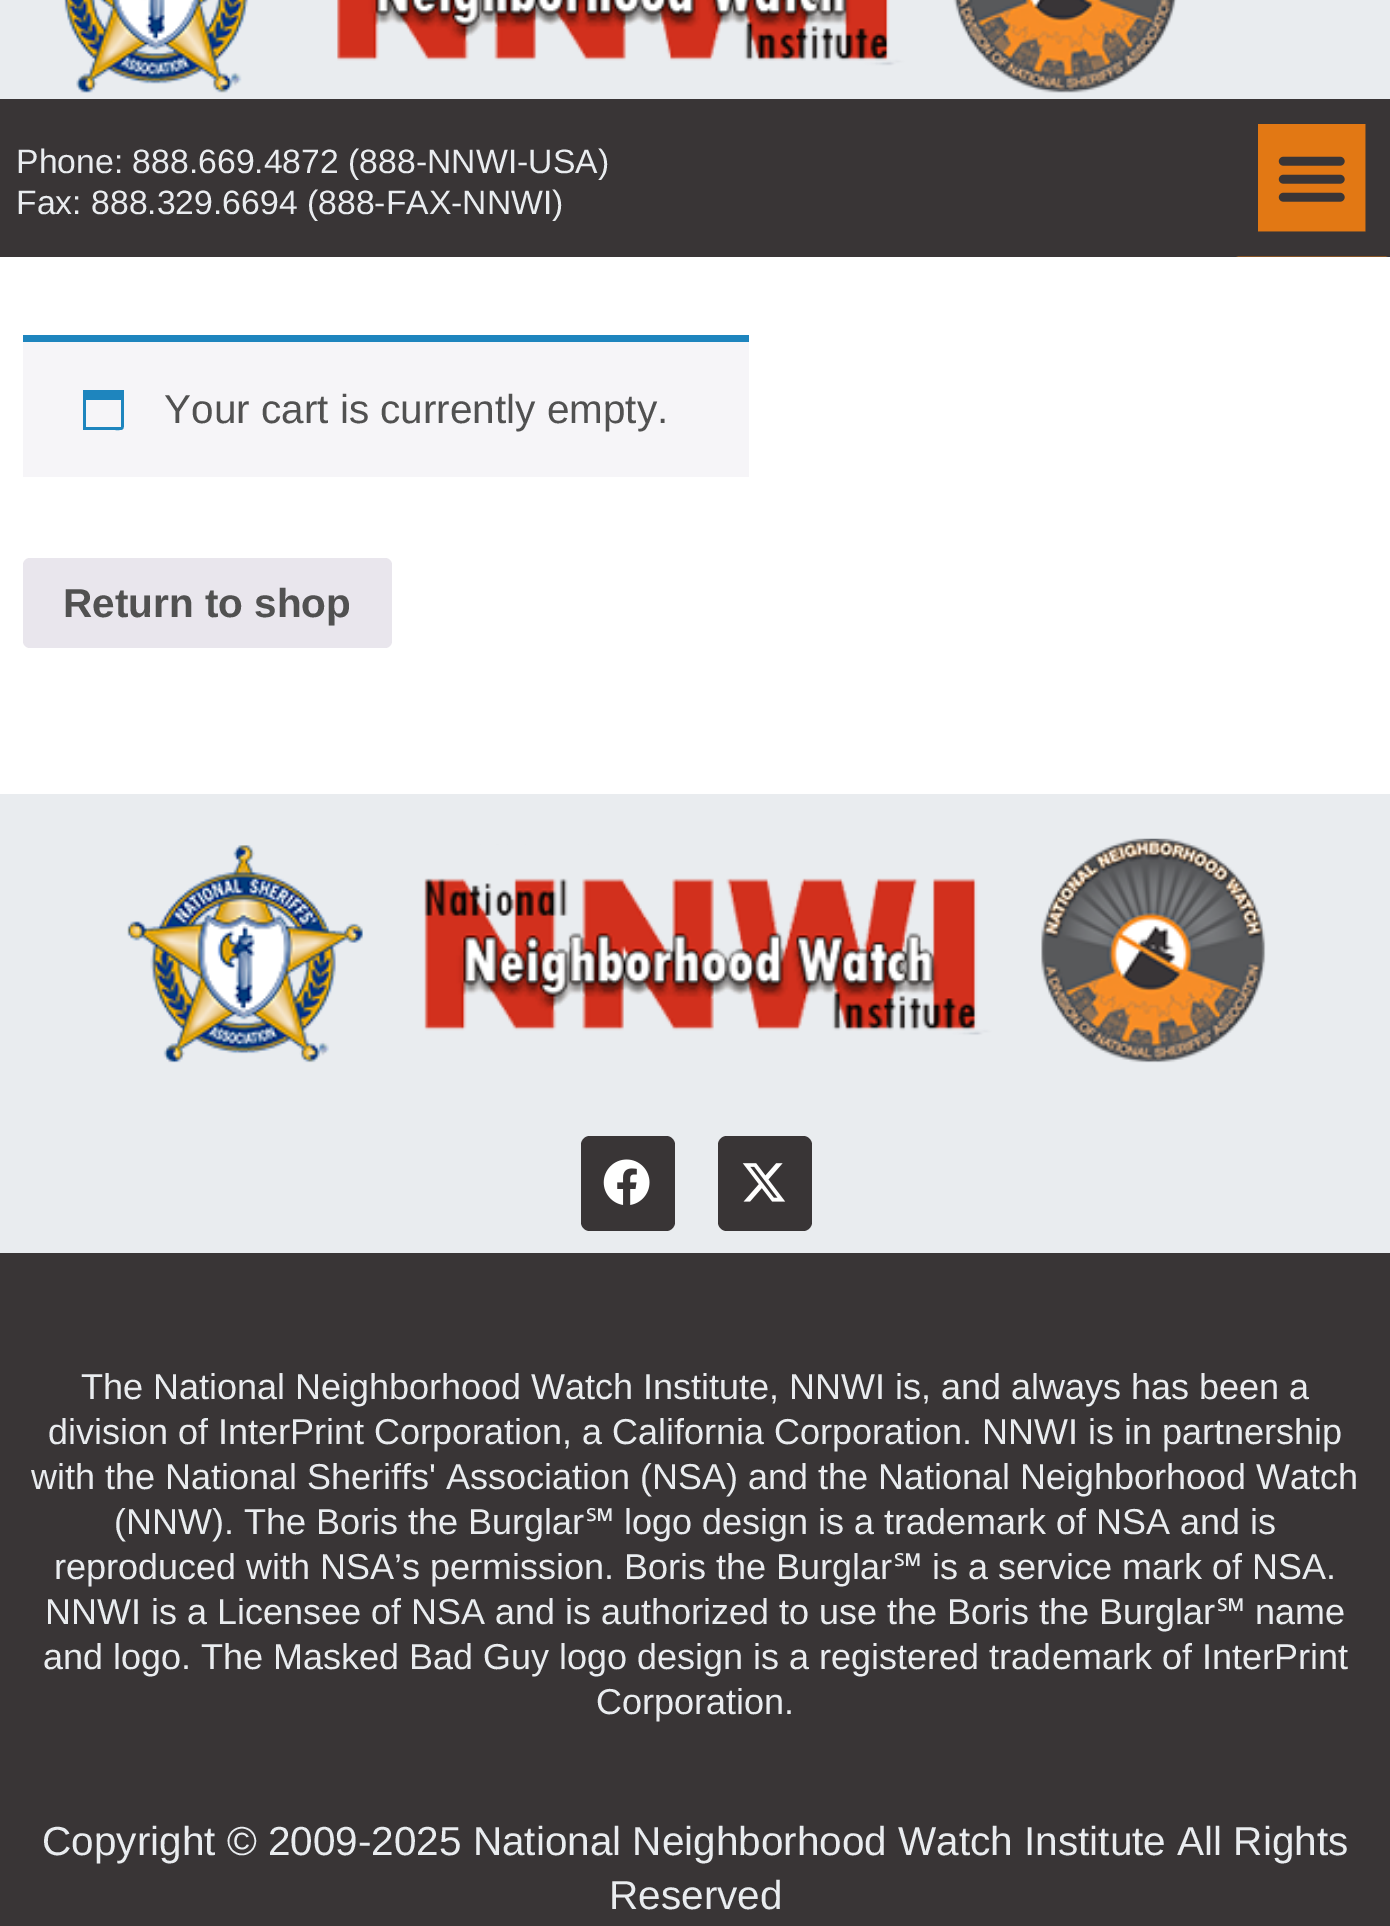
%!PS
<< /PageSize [1390 1926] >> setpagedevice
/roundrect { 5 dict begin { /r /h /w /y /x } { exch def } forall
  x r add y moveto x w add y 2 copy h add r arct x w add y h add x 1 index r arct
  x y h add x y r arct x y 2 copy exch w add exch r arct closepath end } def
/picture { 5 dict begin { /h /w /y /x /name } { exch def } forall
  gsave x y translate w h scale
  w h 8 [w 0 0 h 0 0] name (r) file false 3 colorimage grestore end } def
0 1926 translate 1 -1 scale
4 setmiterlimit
1 setgray
0 0 1390 1926 rectfill
0.914 0.925 0.937 setrgbcolor
0 0 1390 99 rectfill
(img1.rgb) 64 0 1113 93 picture
0.224 0.208 0.212 setrgbcolor
0 99 1390 158 rectfill
/LiberationSans-Regular [33.75 0 0 -33.75 0 0] selectfont
0.914 0.925 0.937 setrgbcolor
16 173 moveto (Phone: 888.669.4872 \(888-NNWI-USA\)) show
16 214 moveto (Fax: 888.329.6694 \(888-FAX-NNWI\)) show
0.886 0.471 0.078 setrgbcolor
1233 99 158 158 7 roundrect fill
0.224 0.208 0.212 setrgbcolor
24.8 setlinewidth
newpath 1245.5 111.5 moveto 1378 111.5 lineto 1378 244 lineto 1245.5 244 lineto closepath stroke
(img2.rgb) 1278 156 67 46 picture
0.965 0.961 0.973 setrgbcolor
23 342 726 135 rectfill
0.118 0.522 0.745 setrgbcolor
23 335 726 7 rectfill
newpath 121 400 moveto 86 400 lineto 86 427 lineto 121 427 lineto closepath 124 390 moveto 124 420 lineto 124 431 124 430 115 430 curveto 83 430 lineto 83 390 lineto closepath fill
/LiberationSans-Regular [40.5 0 0 -40.5 0 0] selectfont
0.318 setgray
164 423 moveto (Your cart is currently empty.) show
0.914 0.902 0.929 setrgbcolor
23 558 369 90 7 roundrect fill
/LiberationSans-Bold [40.5 0 0 -40.5 0 0] selectfont
0.318 setgray
63 617 moveto (Return to shop) show
0.914 0.925 0.937 setrgbcolor
0 794 1390 459 rectfill
(img3.rgb) 127 838 1139 225 picture
0.224 0.208 0.212 setrgbcolor
581 1136 94 95 9 roundrect fill
(img4.rgb) 603 1159 47 46 picture
718 1136 94 95 9 roundrect fill
(img5.rgb) 742 1163 44 39 picture
0 1253 1390 673 rectfill
/LiberationSans-Regular [36 0 0 -36 0 0] selectfont
0.914 0.925 0.937 setrgbcolor
81 1399 moveto (The National Neighborhood Watch Institute, NNWI is, and always has been a) show
48 1444 moveto (division of InterPrint Corporation, a California Corporation. NNWI is in partnership) show
31 1489 moveto (with the National Sheriffs' Association \(NSA\) and the National Neighborhood Watch) show
114 1534 moveto (\(NNW\). The Boris the Burglar) show
/NotoSans-Regular [36 0 0 -36 0 0] selectfont
585 1534 moveto (℠) show
/LiberationSans-Regular [36 0 0 -36 0 0] selectfont
624 1534 moveto (logo design is a trademark of NSA and is) show
54 1579 moveto (reproduced with NSA’s permission. Boris the Burglar) show
/NotoSans-Regular [36 0 0 -36 0 0] selectfont
893 1579 moveto (℠) show
/LiberationSans-Regular [36 0 0 -36 0 0] selectfont
932 1579 moveto (is a service mark of NSA.) show
45 1624 moveto (NNWI is a Licensee of NSA and is authorized to use the Boris the Burglar) show
/NotoSans-Regular [36 0 0 -36 0 0] selectfont
1216 1624 moveto (℠) show
/LiberationSans-Regular [36 0 0 -36 0 0] selectfont
1255 1624 moveto (name) show
43 1669 moveto (and logo. The Masked Bad Guy logo design is a registered trademark of InterPrint) show
596 1714 moveto (Corporation.) show
/LiberationSans-Regular [40.5 0 0 -40.5 0 0] selectfont
42 1855 moveto (Copyright © 2009-2025 National Neighborhood Watch Institute All Rights) show
609 1909 moveto (Reserved) show
showpage
